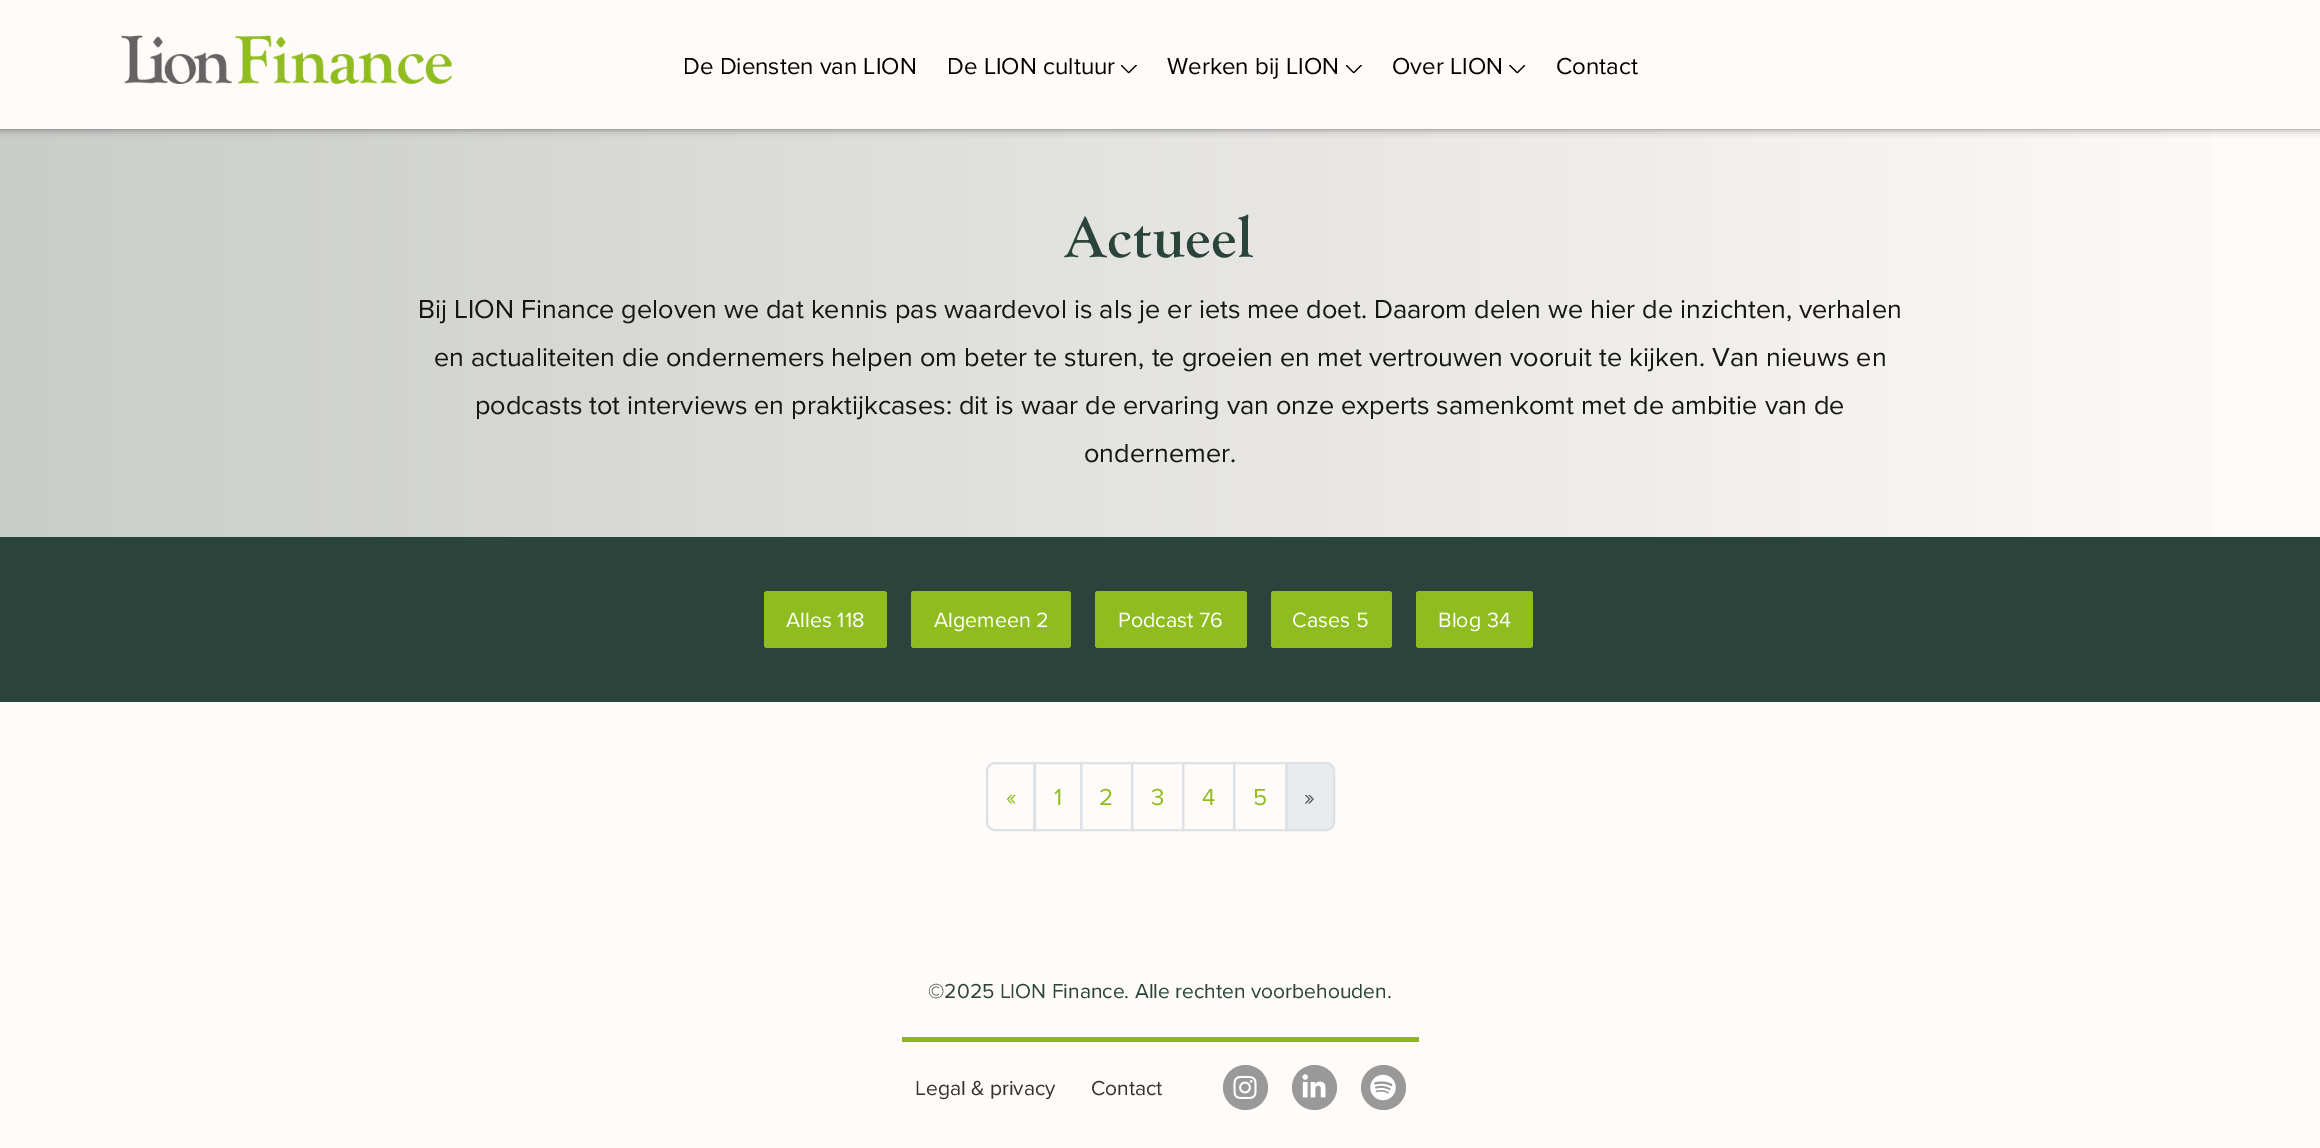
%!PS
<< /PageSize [2320 1148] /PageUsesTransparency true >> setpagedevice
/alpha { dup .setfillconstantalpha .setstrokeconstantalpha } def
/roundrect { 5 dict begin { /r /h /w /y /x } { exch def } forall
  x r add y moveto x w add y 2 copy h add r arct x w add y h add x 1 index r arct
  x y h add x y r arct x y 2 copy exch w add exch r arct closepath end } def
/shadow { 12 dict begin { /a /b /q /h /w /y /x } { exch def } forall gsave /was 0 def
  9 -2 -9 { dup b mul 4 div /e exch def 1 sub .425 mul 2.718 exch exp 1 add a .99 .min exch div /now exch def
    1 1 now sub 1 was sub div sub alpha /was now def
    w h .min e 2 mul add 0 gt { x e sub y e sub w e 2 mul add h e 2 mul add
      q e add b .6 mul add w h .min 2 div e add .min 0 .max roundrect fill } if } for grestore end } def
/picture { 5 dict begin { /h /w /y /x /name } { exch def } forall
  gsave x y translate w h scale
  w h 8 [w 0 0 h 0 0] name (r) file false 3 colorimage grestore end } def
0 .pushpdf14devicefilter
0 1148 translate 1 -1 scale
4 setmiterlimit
1 0.984 0.973 setrgbcolor
0 0 2320 1148 rectfill
gsave newpath 0 129 moveto 2212 129 lineto 2212 537 lineto 0 537 lineto closepath clip newpath
<< /ShadingType 2 /ColorSpace /DeviceRGB /Coords [0 333 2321 333] /Extend [true true] /Function << /FunctionType 2 /Domain [0 1] /C0 [0.792 0.804 0.792] /C1 [1 0.984 0.976] /N 1 >> >> shfill grestore
0 setgray
0 0 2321 129 0 4 0.5 shadow
1 0.984 0.973 setrgbcolor
0 0 2320 129 rectfill
(img1.rgb) 121 35 332 49 picture
/ProximaNova-Regular [24 0 0 -24 0 0] selectfont
0 setgray
683 74 moveto (De Diensten van LION) show
947 74 moveto (De LION cultuur) show
(img2.rgb) 1121 65 16 9 picture
1167 74 moveto (Werken bij LION) show
(img2.rgb) 1346 65 16 9 picture
1392 74 moveto (Over LION) show
(img3.rgb) 1509 65 17 9 picture
1556 74 moveto (Contact) show
/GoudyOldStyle-Bold [60 0 0 -60 0 0] selectfont
0.169 0.267 0.231 setrgbcolor
1065 257 moveto 0.5 0 (Actueel) ashow
/ProximaNova-Regular [27 0 0 -27 0 0] selectfont
0.086 0.086 0.082 setrgbcolor
418 318 moveto (Bij LION Finance geloven we dat kennis pas waardevol is als je er iets mee doet. Daarom delen we hier de inzichten, verhalen) show
434 366 moveto (en actualiteiten die ondernemers helpen om beter te sturen, te groeien en met vertrouwen vooruit te kijken. Van nieuws en) show
475 414 moveto (podcasts tot interviews en praktijkcases: dit is waar de ervaring van onze experts samenkomt met de ambitie van de) show
1084 462 moveto (ondernemer.) show
0.169 0.267 0.231 setrgbcolor
0 537 2320 165 rectfill
0.561 0.741 0.125 setrgbcolor
764 591 123 57 3 roundrect fill
/ProximaNova-Regular [21.5 0 0 -21.5 0 0] selectfont
1 setgray
786 627 moveto (Alles 118) show
0.561 0.741 0.125 setrgbcolor
911 591 160 57 3 roundrect fill
1 setgray
934 627 moveto (Algemeen 2) show
0.561 0.741 0.125 setrgbcolor
1095 591 152 57 3 roundrect fill
1 setgray
1118 627 moveto (Podcast 76) show
0.561 0.741 0.125 setrgbcolor
1271 591 121 57 3 roundrect fill
1 setgray
1292 627 moveto (Cases 5) show
0.561 0.741 0.125 setrgbcolor
1416 591 117 57 3 roundrect fill
1 setgray
1438 627 moveto (Blog 34) show
0.871 0.886 0.902 setrgbcolor
2 setlinewidth
newpath 995 763 moveto 1034 763 lineto 1034 830 lineto 995 830 lineto 990.5 830 987 826.5 987 822 curveto 987 771 lineto 987 766.5 990.5 763 995 763 curveto closepath stroke
/ProximaNova-Regular [24 0 0 -24 0 0] selectfont
0.561 0.741 0.125 setrgbcolor
1006 805 moveto («) show
0.871 0.886 0.902 setrgbcolor
1035 763 46 67 rectstroke
0.561 0.741 0.125 setrgbcolor
1054 805 moveto (1) show
0.871 0.886 0.902 setrgbcolor
1081 763 51 67 rectstroke
0.561 0.741 0.125 setrgbcolor
1099 805 moveto (2) show
0.871 0.886 0.902 setrgbcolor
1132 763 51 67 rectstroke
0.561 0.741 0.125 setrgbcolor
1151 805 moveto (3) show
0.871 0.886 0.902 setrgbcolor
1183 763 51 67 rectstroke
0.561 0.741 0.125 setrgbcolor
1202 805 moveto (4) show
0.871 0.886 0.902 setrgbcolor
1234 763 52 67 rectstroke
0.561 0.741 0.125 setrgbcolor
1253 805 moveto (5) show
0.914 0.925 0.937 setrgbcolor
newpath 1287 763 moveto 1326 763 lineto 1330.5 763 1334 766.5 1334 771 curveto 1334 822 lineto 1334 826.5 1330.5 830 1326 830 curveto 1287 830 lineto closepath gsave fill grestore
0.871 0.886 0.902 setrgbcolor
stroke
0.325 0.341 0.357 setrgbcolor
1304 805 moveto (») show
/ProximaNova-Regular [21 0 0 -21 0 0] selectfont
0.169 0.267 0.231 setrgbcolor
928 998 moveto (©2025 LION Finance. Alle rechten voorbehouden.) show
0.545 0.714 0.11 setrgbcolor
902 1037 517 5 rectfill
0.2 setgray
915 1095 moveto (Legal & privacy) show
1091 1095 moveto (Contact) show
0.6 setgray
newpath 1245.5 1087.5 22.5 0 360 arc closepath fill
(img4.rgb) 1233 1075 24 25 picture
newpath 1314.5 1087.5 22.5 0 360 arc closepath fill
(img5.rgb) 1302 1074 24 24 picture
newpath 1383.5 1087.5 22.5 0 360 arc closepath fill
(img6.rgb) 1370 1074 26 27 picture
.poppdf14devicefilter showpage
